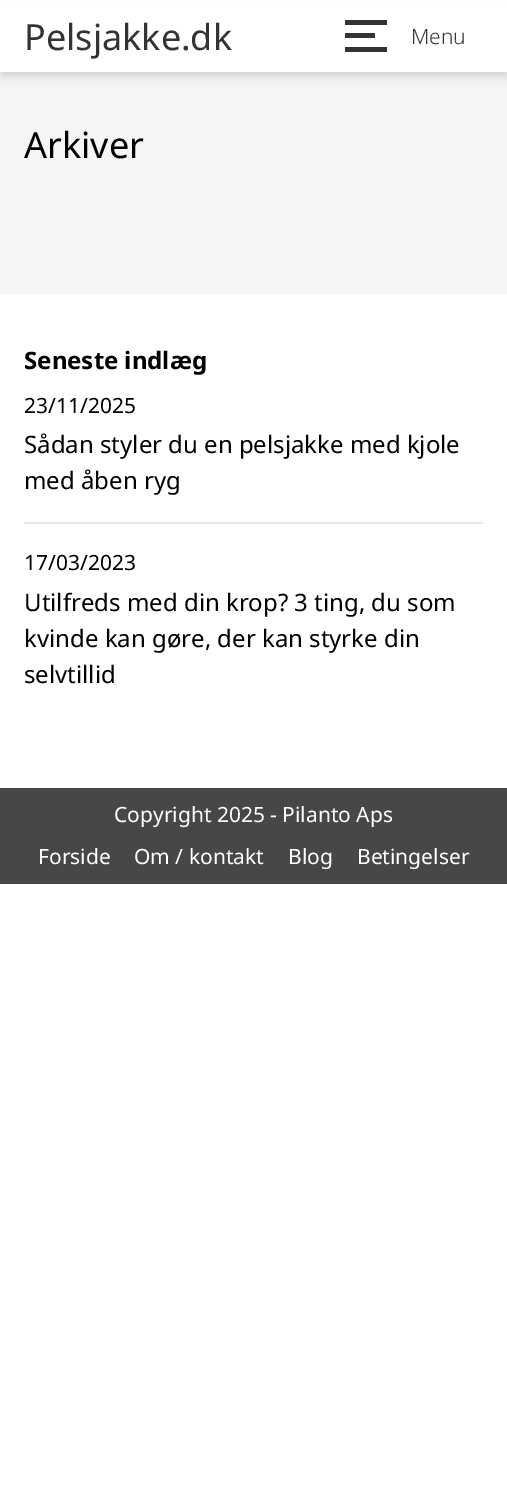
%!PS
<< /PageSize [507 1492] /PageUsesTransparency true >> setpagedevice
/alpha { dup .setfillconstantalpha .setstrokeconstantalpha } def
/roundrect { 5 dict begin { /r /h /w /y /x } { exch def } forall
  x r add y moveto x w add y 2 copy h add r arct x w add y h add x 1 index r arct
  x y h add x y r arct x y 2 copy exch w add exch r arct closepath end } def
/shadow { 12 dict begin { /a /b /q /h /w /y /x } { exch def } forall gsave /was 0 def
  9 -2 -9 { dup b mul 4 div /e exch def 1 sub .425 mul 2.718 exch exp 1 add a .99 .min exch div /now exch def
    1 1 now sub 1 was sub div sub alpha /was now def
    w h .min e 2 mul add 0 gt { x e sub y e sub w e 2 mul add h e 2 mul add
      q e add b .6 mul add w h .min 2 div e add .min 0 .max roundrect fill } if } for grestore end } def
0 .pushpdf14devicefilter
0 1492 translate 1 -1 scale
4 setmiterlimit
1 setgray
0 0 507 1492 rectfill
0.961 setgray
0 72 507 222 rectfill
0 setgray
2 5 504 69 0 3 0.06 shadow
2 8 504 69 0 4.5 0.1 shadow
1 setgray
0 1 507 71 rectfill
/NotoSans-Regular [36 0 0 -36 0 0] selectfont
0.2 setgray
24 50 moveto (Pelsjakke.dk) show
345 20 42 5 rectfill
345 33 30 5 rectfill
345 47 42 5 rectfill
/NotoSans-Light [21 0 0 -21 0 0] selectfont
411 44 moveto (Menu) show
/NotoSans-Regular [36 0 0 -36 0 0] selectfont
0 setgray
24 158 moveto (Arkiver) show
/NotoSans-Bold [24 0 0 -24 0 0] selectfont
24 369 moveto (Seneste indlæg) show
0.898 0.906 0.922 setrgbcolor
24 522 459 2 rectfill
/NotoSans-Regular [21 0 0 -21 0 0] selectfont
0 setgray
24 413 moveto (23/11/2025) show
/NotoSans-Regular [24 0 0 -24 0 0] selectfont
24 453 moveto (Sådan styler du en pelsjakke med kjole) show
24 489 moveto (med åben ryg) show
/NotoSans-Regular [21 0 0 -21 0 0] selectfont
24 570 moveto (17/03/2023) show
/NotoSans-Regular [24 0 0 -24 0 0] selectfont
24 611 moveto (Utilfreds med din krop? 3 ting, du som) show
24 647 moveto (kvinde kan gøre, der kan styrke din) show
24 683 moveto (selvtillid) show
0.278 setgray
0 788 507 96 rectfill
/NotoSans-Regular [21 0 0 -21 0 0] selectfont
1 setgray
114 822 moveto (Copyright 2025 - Pilanto Aps) show
38 864 moveto (Forside) show
134 864 moveto (Om / kontakt) show
288 864 moveto (Blog) show
357 864 moveto (Betingelser) show
.poppdf14devicefilter showpage
